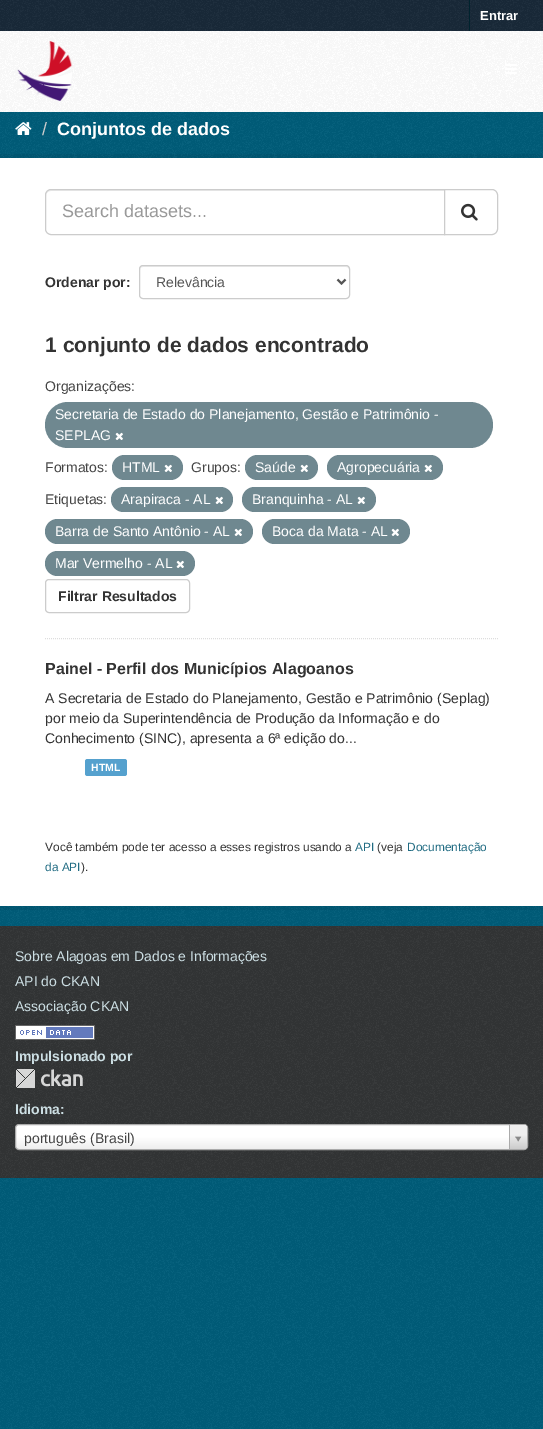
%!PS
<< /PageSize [543 1429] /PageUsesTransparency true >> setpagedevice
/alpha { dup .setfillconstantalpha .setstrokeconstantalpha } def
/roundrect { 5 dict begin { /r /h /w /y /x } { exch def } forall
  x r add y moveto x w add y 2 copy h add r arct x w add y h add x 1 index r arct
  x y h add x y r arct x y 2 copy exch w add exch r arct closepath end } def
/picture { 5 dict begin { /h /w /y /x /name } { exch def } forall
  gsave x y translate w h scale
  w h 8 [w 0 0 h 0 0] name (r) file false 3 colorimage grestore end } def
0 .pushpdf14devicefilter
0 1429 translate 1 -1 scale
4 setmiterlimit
0 0.365 0.478 setrgbcolor
0 0 543 1429 rectfill
(img1.rgb) 0 112 543 1317 picture
0.098 0.161 0.224 setrgbcolor
0 0 543 31 rectfill
(img2.rgb) 0 0 543 31 picture
0 0.137 0.18 setrgbcolor
469 0 1 31 rectfill
/LiberationSans-Bold [13 0 0 -13 0 0] selectfont
1 setgray
480 20 moveto (Entrar) show
0 31 543 81 rectfill
(img3.rgb) 0 31 543 81 picture
(img4.rgb) 17 41 56 60 picture
(img5.rgb) 505 64 12 10 picture
(img6.rgb) 15 122 17 13 picture
/LiberationSans-Regular [18 0 0 -18 0 0] selectfont
0.8 setgray
42 135 moveto (/) show
/LiberationSans-Bold [18 0 0 -18 0 0] selectfont
1 setgray
57 135 moveto (Conjuntos de dados) show
0.05 alpha
0 setgray
4 setlinewidth
-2 156 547 752 rectstroke
1 alpha
1 setgray
0 158 543 748 rectfill
0.867 setgray
1 setlinewidth
[1 1] 0 setdash
newpath 45 638.5 moveto 498 638.5 lineto stroke
0.925 setgray
newpath 51 191 moveto 444 191 lineto 444 190 lineto 51 190 lineto 48 190 46 193 46 196 curveto 46 193 48 191 51 191 curveto closepath fill
0.8 setgray
[] 0 setdash
newpath 51 189.5 moveto 444.5 189.5 lineto 444.5 234.5 lineto 51 234.5 lineto 48 234.5 45.5 232 45.5 229 curveto 45.5 195 lineto 45.5 192 48 189.5 51 189.5 curveto closepath stroke
/LiberationSans-Regular [18 0 0 -18 0 0] selectfont
0.6 setgray
62 217 moveto (Search datasets...) show
1 setgray
newpath 444.5 189.5 moveto 492 189.5 lineto 495 189.5 497.5 192 497.5 195 curveto 497.5 229 lineto 497.5 232 495 234.5 492 234.5 curveto 444.5 234.5 lineto closepath gsave fill grestore
0.8 setgray
stroke
(img7.rgb) 461 203 17 18 picture
/LiberationSans-Bold [14 0 0 -14 0 0] selectfont
0.2 setgray
45 287 moveto (Ordenar por:) show
0.925 setgray
newpath 143 267 moveto 346 267 lineto 348 267 349 268 349 270 curveto 349 269 lineto 349 267 348 266 346 266 curveto 143 266 lineto 141 266 140 267 140 269 curveto 140 270 lineto 140 268 141 267 143 267 curveto closepath fill
0.8 setgray
139.5 265.5 210 33 3.5 roundrect stroke
0.333 setgray
2 setlinewidth
newpath 337.5 279.5 moveto 341.5 283.5 lineto 345.5 279.5 lineto stroke
/LiberationSans-Regular [14 0 0 -14 0 0] selectfont
156 287 moveto (Relevância) show
/LiberationSans-Bold [21 0 0 -21 0 0] selectfont
0.2 setgray
45 352 moveto (1 conjunto de dados encontrado) show
/LiberationSans-Regular [14 0 0 -14 0 0] selectfont
0.267 setgray
45 391 moveto (Organizações:) show
0.435 0.533 0.565 setrgbcolor
45 402 448 46 23 roundrect fill
1 setgray
55 419 moveto (Secretaria de Estado do Planejamento, Gestão e Patrimônio -) show
55 440 moveto (SEPLAG) show
(img8.rgb) 115 432 8 8 picture
0.267 setgray
45 472 moveto (Formatos:) show
0.435 0.533 0.565 setrgbcolor
112 455 71 25 12.5 roundrect fill
1 setgray
122 472 moveto (HTML) show
(img8.rgb) 164 464 8 8 picture
0.267 setgray
191 472 moveto (Grupos:) show
0.435 0.533 0.565 setrgbcolor
245 455 73 25 12.5 roundrect fill
1 setgray
255 472 moveto (Saúde) show
(img8.rgb) 300 464 8 8 picture
0.435 0.533 0.565 setrgbcolor
327 455 116 25 12.5 roundrect fill
1 setgray
337 472 moveto (Agropecuária) show
(img8.rgb) 424 464 8 8 picture
0.267 setgray
45 504 moveto (Etiquetas:) show
0.435 0.533 0.565 setrgbcolor
111 487 122 25 12.5 roundrect fill
1 setgray
121 504 moveto (Arapiraca - AL) show
(img8.rgb) 215 496 8 8 picture
0.435 0.533 0.565 setrgbcolor
242 487 134 25 12.5 roundrect fill
1 setgray
252 504 moveto (Branquinha - AL) show
(img8.rgb) 357 496 8 8 picture
0.435 0.533 0.565 setrgbcolor
45 519 208 25 12.5 roundrect fill
1 setgray
55 536 moveto (Barra de Santo Antônio - AL) show
(img8.rgb) 234 528 8 8 picture
0.435 0.533 0.565 setrgbcolor
262 519 148 25 12.5 roundrect fill
1 setgray
272 536 moveto (Boca da Mata - AL) show
(img8.rgb) 391 528 8 8 picture
0.435 0.533 0.565 setrgbcolor
45 551 150 25 12.5 roundrect fill
1 setgray
55 568 moveto (Mar Vermelho - AL) show
(img8.rgb) 176 560 8 8 picture
0.8 setgray
1 setlinewidth
45.5 579.5 144 33 3.5 roundrect stroke
/LiberationSans-Bold [14 0 0 -14 0 0] selectfont
0.2 setgray
58 601 moveto (Filtrar Resultados) show
/LiberationSans-Bold [16 0 0 -16 0 0] selectfont
45 674 moveto (Painel - Perfil dos Municípios Alagoanos) show
/LiberationSans-Regular [14 0 0 -14 0 0] selectfont
45 703 moveto (A Secretaria de Estado do Planejamento, Gestão e Patrimônio \(Seplag\)) show
45 723 moveto (por meio da Superintendência de Produção da Informação e do) show
45 743 moveto (Conhecimento \(SINC\), apresenta a 6ª edição do...) show
0.333 0.631 0.808 setrgbcolor
85 759 42 17 2.5 roundrect fill
/LiberationSans-Bold [10.5 0 0 -10.5 0 0] selectfont
1 setgray
91 771 moveto (HTML) show
/LiberationSans-Regular [11.9 0 0 -11.9 0 0] selectfont
0.2 setgray
45 851 moveto (Você também pode ter acesso a esses registros usando a) show
0.125 0.42 0.51 setrgbcolor
355 851 moveto (API) show
0.2 setgray
377 851 moveto (\(veja) show
0.125 0.42 0.51 setrgbcolor
407 851 moveto (Documentação) show
45 871 moveto (da API) show
0.2 setgray
81 871 moveto (\).) show
0.2 0.208 0.212 setrgbcolor
0 926 543 252 rectfill
(img9.rgb) 0 926 543 252 picture
/LiberationSans-Regular [14 0 0 -14 0 0] selectfont
0.8 0.871 0.89 setrgbcolor
15 961 moveto (Sobre Alagoas em Dados e Informações) show
15 986 moveto (API do CKAN) show
15 1011 moveto (Associação CKAN) show
(img10.rgb) 15 1025 80 15 picture
/LiberationSans-Bold [14 0 0 -14 0 0] selectfont
15 1061 moveto (Impulsionado por) show
(img11.rgb) 16 1069 67 19 picture
15 1114 moveto (Idioma:) show
gsave 16 1125 511 24 3 roundrect clip newpath
<< /ShadingType 2 /ColorSpace /DeviceRGB /Coords [272 1149 272 1125] /Extend [true true] /Function << /FunctionType 3 /Domain [0 1] /Functions [<< /FunctionType 2 /Domain [0 1] /C0 [0.933 0.933 0.933] /C1 [1 1 1] /N 1 >> << /FunctionType 2 /Domain [0 1] /C0 [1 1 1] /C1 [1 1 1] /N 1 >>] /Bounds [0.5] /Encode [0 1 0 1] >> >> shfill grestore
0.667 setgray
15.5 1124.5 512 25 3.5 roundrect stroke
/LiberationSans-Regular [14 0 0 -14 0 0] selectfont
0.267 setgray
24 1143 moveto (português \(Brasil\)) show
gsave
16 1125 511 24 3 roundrect clip newpath
gsave newpath 509 1125 moveto 523 1125 lineto 525 1125 527 1127 527 1129 curveto 527 1145 lineto 527 1147 525 1149 523 1149 curveto 509 1149 lineto closepath clip newpath
<< /ShadingType 2 /ColorSpace /DeviceRGB /Coords [519 1149 519 1125] /Extend [true true] /Function << /FunctionType 3 /Domain [0 1] /Functions [<< /FunctionType 2 /Domain [0 1] /C0 [0.8 0.8 0.8] /C1 [0.933 0.933 0.933] /N 1 >> << /FunctionType 2 /Domain [0 1] /C0 [0.933 0.933 0.933] /C1 [0.933 0.933 0.933] /N 1 >>] /Bounds [0.6] /Encode [0 1 0 1] >> >> shfill grestore
grestore
0.667 setgray
509 1125 1 24 rectfill
(img12.rgb) 515 1136 7 6 picture
.poppdf14devicefilter showpage
